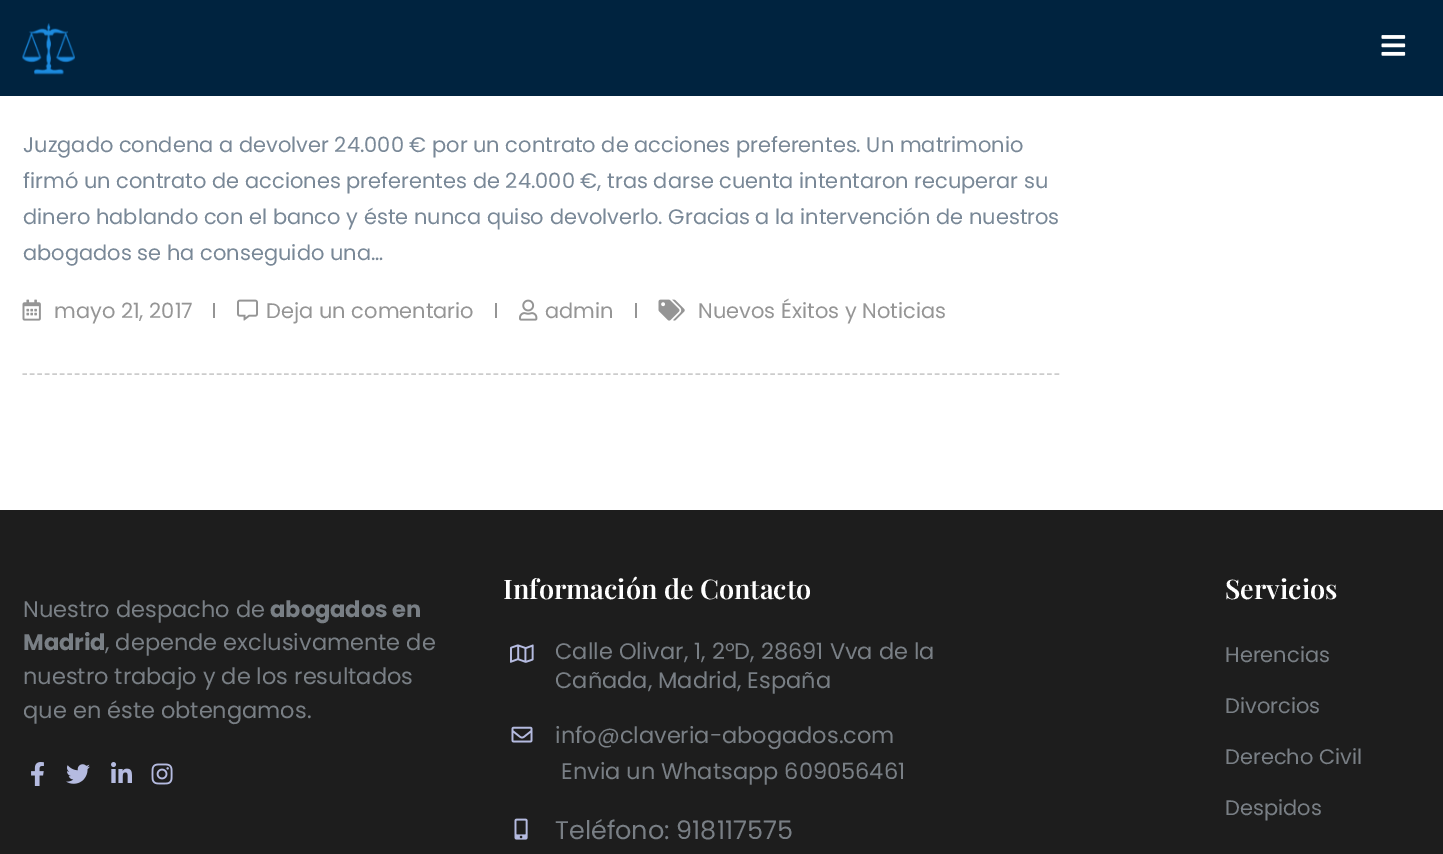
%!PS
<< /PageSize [1443 854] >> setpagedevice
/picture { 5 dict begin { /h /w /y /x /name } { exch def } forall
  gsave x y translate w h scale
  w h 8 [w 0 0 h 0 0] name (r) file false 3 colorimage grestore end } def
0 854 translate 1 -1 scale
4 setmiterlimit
1 setgray
0 0 1443 854 rectfill
0 0.137 0.247 setrgbcolor
0 0 1443 96 rectfill
(img1.rgb) 22 23 53 52 picture
(img2.rgb) 1381 35 25 21 picture
0.8 setgray
1.5 setlinewidth
[4.5 2.98] 0 setdash
newpath 22.5 374 moveto 1060.5 374 lineto stroke
/Poppins-Regular [21 0 0 -21 0 0] selectfont
0.475 0.533 0.592 setrgbcolor
23 152 moveto (Juzgado condena a devolver 24.000 € por un contrato de acciones preferentes. Un matrimonio) show
23 188 moveto (firmó un contrato de acciones preferentes de 24.000 €, tras darse cuenta intentaron recuperar su) show
23 224 moveto (dinero hablando con el banco y éste nunca quiso devolverlo. Gracias a la intervención de nuestros) show
23 260 moveto (abogados se ha conseguido una…) show
(img3.rgb) 22 299 19 22 picture
0.584 setgray
54 318 moveto (mayo 21, 2017) show
213 303 2 15 rectfill
(img4.rgb) 237 299 21 22 picture
266 318 moveto (Deja un comentario) show
495 303 2 15 rectfill
(img5.rgb) 519 299 19 22 picture
545 318 moveto (admin) show
635 303 2 15 rectfill
(img6.rgb) 658 299 27 22 picture
698 318 moveto (Nuevos Éxitos y Noticias) show
0.114 setgray
0 510 1443 344 rectfill
/Poppins-Regular [22.5 0 0 -22.5 0 0] selectfont
0.475 0.498 0.522 setrgbcolor
23 617 moveto (Nuestro despacho de) show
/Poppins-Bold [22.5 0 0 -22.5 0 0] selectfont
270 617 moveto (abogados en) show
23 650 moveto (Madrid) show
/Poppins-Regular [22.5 0 0 -22.5 0 0] selectfont
105 650 moveto (, depende exclusivamente de) show
23 684 moveto (nuestro trabajo y de los resultados) show
23 718 moveto (que en éste obtengamos.) show
(img7.rgb) 31 762 13 24 picture
(img8.rgb) 66 764 24 20 picture
(img9.rgb) 111 762 21 21 picture
(img10.rgb) 151 763 22 22 picture
/PlayfairDisplay-SemiBold [27 0 0 -27 0 0] selectfont
1 setgray
503 599 moveto (Información de Contacto) show
(img11.rgb) 510 644 24 19 picture
/Poppins-Regular [22.5 0 0 -22.5 0 0] selectfont
0.475 0.498 0.522 setrgbcolor
555 659 moveto (Calle Olivar, 1, 2ºD, 28691 Vva de la) show
555 688 moveto (Cañada, Madrid, España) show
(img12.rgb) 511 726 22 17 picture
555 743 moveto (info@claveria-abogados.com) show
561 779 moveto (Envia un Whatsapp 609056461) show
(img13.rgb) 514 818 14 22 picture
/Poppins-Regular [25.5 0 0 -25.5 0 0] selectfont
555 839 moveto (Teléfono: 918117575) show
/PlayfairDisplay-SemiBold [27 0 0 -27 0 0] selectfont
1 setgray
1225 599 moveto (Servicios) show
/Poppins-Regular [21 0 0 -21 0 0] selectfont
0.475 0.498 0.522 setrgbcolor
1225 662 moveto (Herencias) show
1225 713 moveto (Divorcios) show
1225 764 moveto (Derecho Civil) show
1225 815 moveto (Despidos) show
showpage
